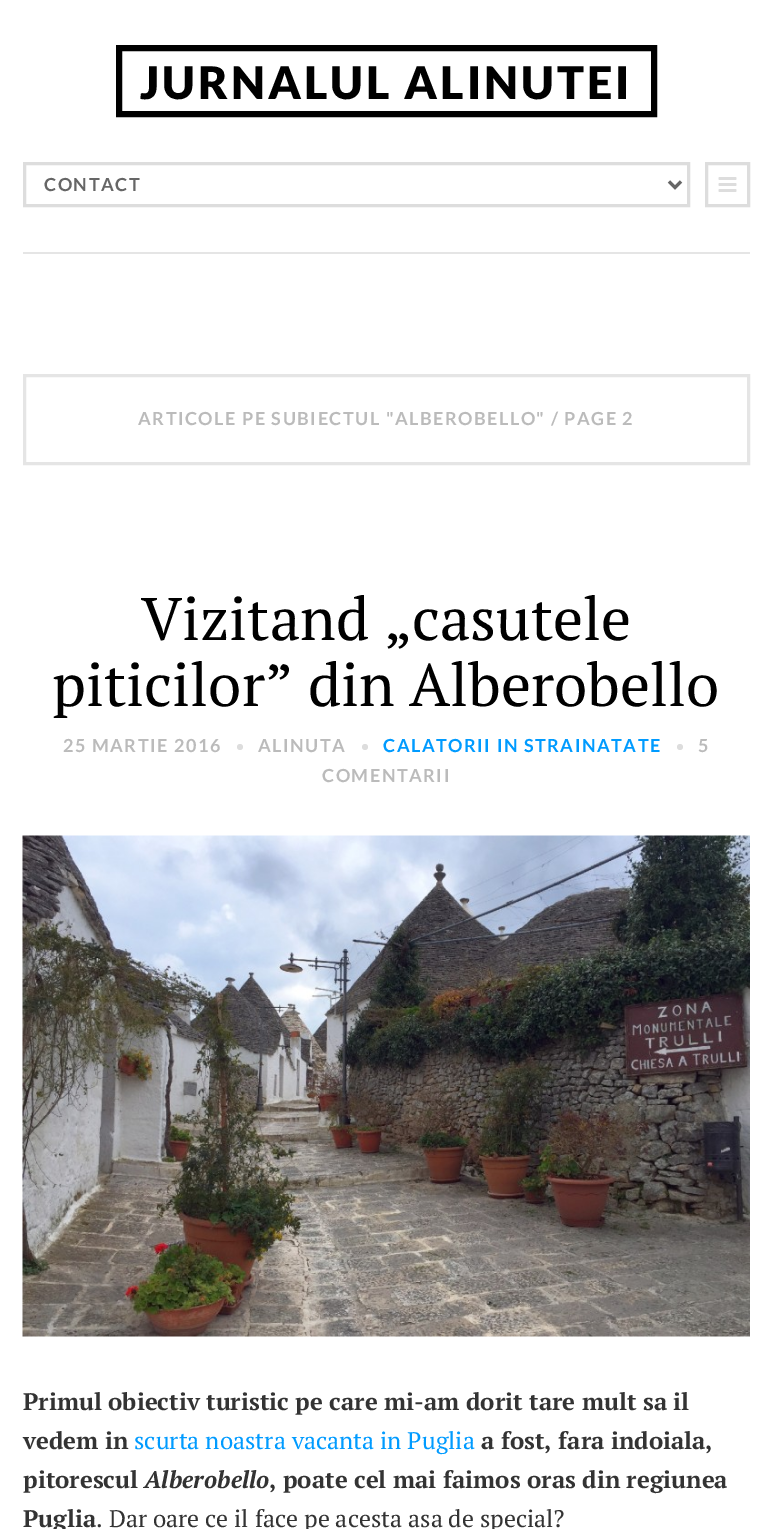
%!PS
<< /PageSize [772 1529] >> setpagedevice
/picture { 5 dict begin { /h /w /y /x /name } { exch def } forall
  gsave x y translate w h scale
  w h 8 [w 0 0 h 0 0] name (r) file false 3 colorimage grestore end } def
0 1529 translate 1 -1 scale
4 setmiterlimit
1 setgray
0 0 772 1529 rectfill
0.898 setgray
23 252 727 2 rectfill
0 setgray
6 setlinewidth
119 48 535 66 rectstroke
/Lato-Black [45 0 0 -45 0 0] selectfont
140 99 moveto 3 0 (JURNALUL ALINUTEI) ashow
0.867 setgray
3 setlinewidth
24.5 163.5 664 42 rectstroke
0.4 setgray
newpath 669 181.5 moveto 675 187.5 lineto 681 181.5 lineto stroke
/Lato-Bold [18 0 0 -18 0 0] selectfont
44 191 moveto 1.5 0 (CONTACT) ashow
0.867 setgray
706.5 163.5 42 42 rectstroke
(img1.rgb) 718 177 19 15 picture
0.898 setgray
24.5 375.5 724 88 rectstroke
0.733 setgray
138 425 moveto 1.5 0 (ARTICOLE PE SUBIECTUL "ALBEROBELLO" / PAGE 2) ashow
/PTSerif-Regular [60 0 0 -60 0 0] selectfont
0 setgray
141 640 moveto (Vizitand „casutele) show
52 706 moveto (piticilor” din Alberobello) show
/Lato-Bold [18 0 0 -18 0 0] selectfont
0.733 setgray
63 752 moveto 1.5 0 (25 MARTIE 2016) ashow
0.867 setgray
newpath 240 747 3 0 360 arc closepath fill
0.733 setgray
258 752 moveto 1.5 0 (ALINUTA) ashow
0.867 setgray
newpath 365 747 3 0 360 arc closepath fill
0 0.608 1 setrgbcolor
383 752 moveto 1.5 0 (CALATORII IN STRAINATATE) ashow
0.867 setgray
newpath 680 747 3 0 360 arc closepath fill
0.733 setgray
698 752 moveto 1.5 0 (5) ashow
322 782 moveto 1.5 0 (COMENTARII) ashow
(img2.rgb) 22 835 728 502 picture
/PTSerif-Bold [24 0 0 -24 0 0] selectfont
0.2 setgray
23 1410 moveto (Primul obiectiv turistic pe care mi-am dorit tare mult sa il) show
23 1449 moveto (vedem in) show
/PTSerif-Regular [24 0 0 -24 0 0] selectfont
0 0.608 1 setrgbcolor
134 1449 moveto (scurta noastra vacanta in Puglia) show
/PTSerif-Bold [24 0 0 -24 0 0] selectfont
0.2 setgray
481 1449 moveto (a fost, fara indoiala,) show
23 1488 moveto (pitorescul) show
/PTSerif-BoldItalic [24 0 0 -24 0 0] selectfont
144 1488 moveto (Alberobello) show
/PTSerif-Bold [24 0 0 -24 0 0] selectfont
269 1488 moveto (, poate cel mai faimos oras din regiunea) show
23 1527 moveto (Puglia) show
/PTSerif-Regular [24 0 0 -24 0 0] selectfont
96 1527 moveto (. Dar oare ce il face pe acesta asa de special?) show
showpage
